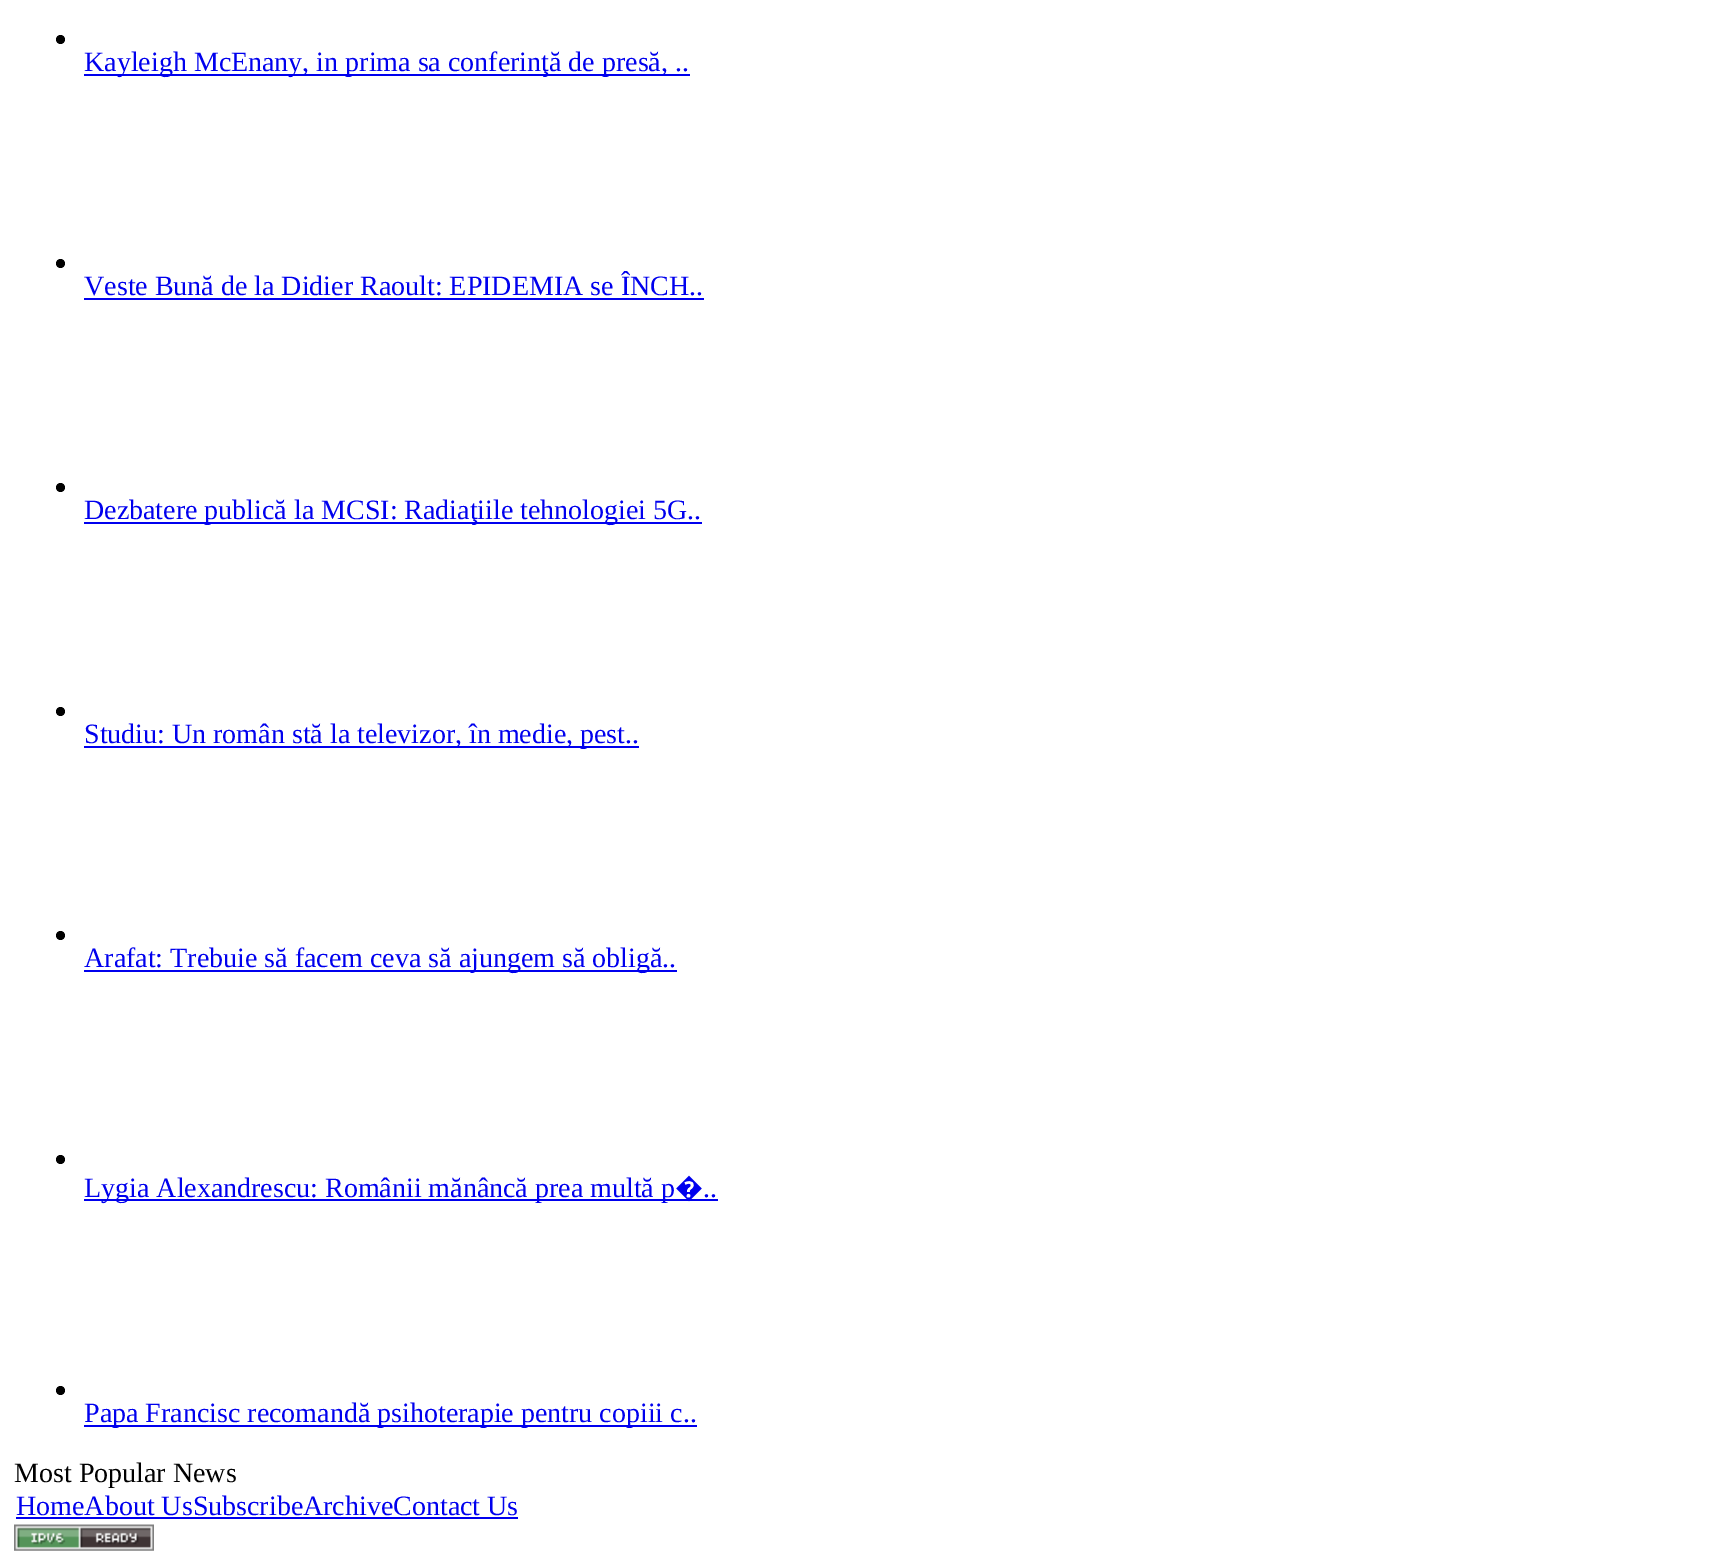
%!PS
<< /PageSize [1736 1564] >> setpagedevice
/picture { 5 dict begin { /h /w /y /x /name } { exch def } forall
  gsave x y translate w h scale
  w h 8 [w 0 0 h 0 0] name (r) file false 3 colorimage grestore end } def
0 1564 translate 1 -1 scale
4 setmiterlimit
1 setgray
0 0 1736 1564 rectfill
0 setgray
newpath 60.5 39.5 4.5 0 360 arc closepath fill
0 0 0.933 setrgbcolor
84 74 606 2 rectfill
/LiberationSerif-Regular [28 0 0 -28 0 0] selectfont
84 71 moveto (Kayleigh McEnany, in prima sa conferinţă de presă, ..) show
0 setgray
newpath 60.5 263.5 4.5 0 360 arc closepath fill
0 0 0.933 setrgbcolor
84 295 moveto (Veste Bună de la Didier Raoult: EPIDEMIA se ÎNCH..) show
84 298 620 2 rectfill
0 setgray
newpath 60.5 487.5 4.5 0 360 arc closepath fill
0 0 0.933 setrgbcolor
84 522 618 2 rectfill
84 519 moveto (Dezbatere publică la MCSI: Radiaţiile tehnologiei 5G..) show
0 setgray
newpath 60.5 711.5 4.5 0 360 arc closepath fill
0 0 0.933 setrgbcolor
84 746 555 2 rectfill
84 743 moveto (Studiu: Un român stă la televizor, în medie, pest..) show
0 setgray
newpath 60.5 935.5 4.5 0 360 arc closepath fill
0 0 0.933 setrgbcolor
84 970 593 2 rectfill
84 967 moveto (Arafat: Trebuie să facem ceva să ajungem să obligă..) show
0 setgray
newpath 60.5 1159.5 4.5 0 360 arc closepath fill
0 0 0.933 setrgbcolor
84 1199 634 2 rectfill
84 1197 moveto (Lygia Alexandrescu: Românii mănâncă prea multă p) show
/NotoSans-Regular [28 0 0 -28 0 0] selectfont
675 1197 moveto (�) show
/LiberationSerif-Regular [28 0 0 -28 0 0] selectfont
703 1197 moveto (..) show
0 setgray
newpath 60.5 1390.5 4.5 0 360 arc closepath fill
0 0 0.933 setrgbcolor
84 1425 613 2 rectfill
84 1422 moveto (Papa Francisc recomandă psihoterapie pentru copiii c..) show
0 setgray
14 1482 moveto (Most Popular News) show
0 0 0.933 setrgbcolor
16 1515 moveto (HomeAbout UsSubscribeArchiveContact Us) show
16 1517 502 2 rectfill
(img1.rgb) 14 1524 140 27 picture
showpage
